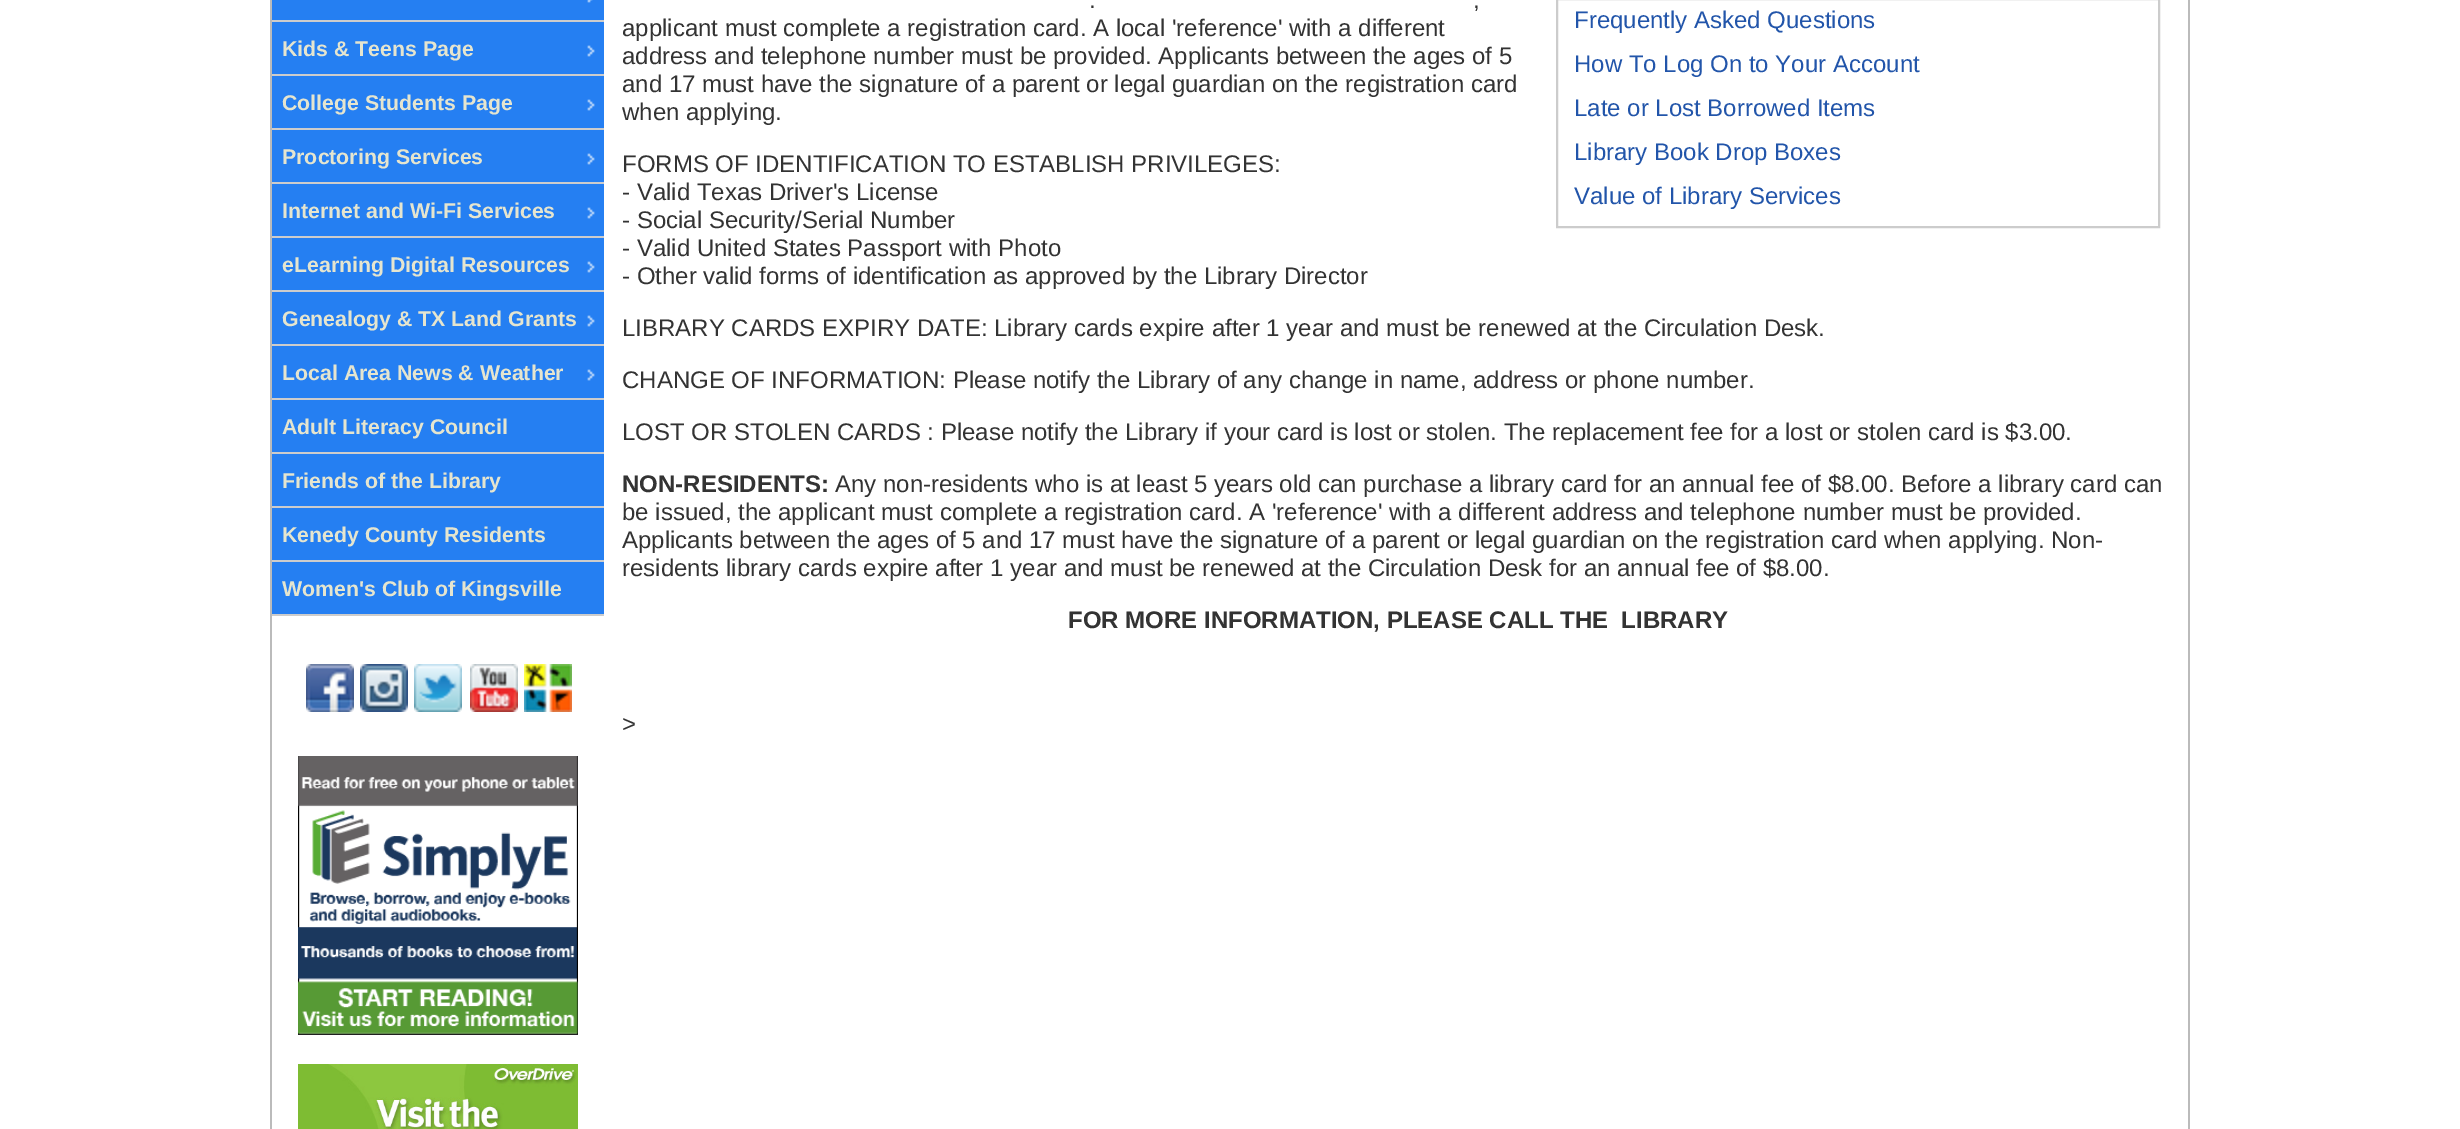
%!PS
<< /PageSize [2460 1129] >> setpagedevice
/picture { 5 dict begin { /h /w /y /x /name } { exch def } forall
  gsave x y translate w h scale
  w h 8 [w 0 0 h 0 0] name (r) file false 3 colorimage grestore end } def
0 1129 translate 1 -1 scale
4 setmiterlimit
1 setgray
0 0 2460 1129 rectfill
0.733 setgray
2188 0 2 1129 rectfill
270 0 2 1129 rectfill
0.145 0.498 0.949 setrgbcolor
272 0 332 20 rectfill
(img1.rgb) 587 0 6 3 picture
0.8 setgray
272 20 332 2 rectfill
0.145 0.498 0.949 setrgbcolor
272 22 332 52 rectfill
(img2.rgb) 587 45 8 12 picture
0.8 setgray
272 74 332 2 rectfill
/LiberationSans-Bold [21.3 0 0 -21.3 0 0] selectfont
0.898 0.898 0.812 setrgbcolor
282 56 moveto (Kids & Teens Page) show
0.145 0.498 0.949 setrgbcolor
272 76 332 52 rectfill
(img2.rgb) 587 99 8 12 picture
0.8 setgray
272 128 332 2 rectfill
0.898 0.898 0.812 setrgbcolor
282 110 moveto (College Students Page) show
0.145 0.498 0.949 setrgbcolor
272 130 332 52 rectfill
(img2.rgb) 587 153 8 12 picture
0.8 setgray
272 182 332 2 rectfill
0.898 0.898 0.812 setrgbcolor
282 164 moveto (Proctoring Services) show
0.145 0.498 0.949 setrgbcolor
272 184 332 52 rectfill
(img2.rgb) 587 207 8 12 picture
0.8 setgray
272 236 332 2 rectfill
0.898 0.898 0.812 setrgbcolor
282 218 moveto (Internet and Wi-Fi Services) show
0.145 0.498 0.949 setrgbcolor
272 238 332 52 rectfill
(img2.rgb) 587 261 8 12 picture
0.8 setgray
272 290 332 2 rectfill
0.898 0.898 0.812 setrgbcolor
282 272 moveto (eLearning Digital Resources) show
0.145 0.498 0.949 setrgbcolor
272 292 332 52 rectfill
(img2.rgb) 587 315 8 12 picture
0.8 setgray
272 344 332 2 rectfill
0.898 0.898 0.812 setrgbcolor
282 326 moveto (Genealogy & TX Land Grants) show
0.145 0.498 0.949 setrgbcolor
272 346 332 52 rectfill
(img2.rgb) 587 369 8 12 picture
0.8 setgray
272 398 332 2 rectfill
0.898 0.898 0.812 setrgbcolor
282 380 moveto (Local Area News & Weather) show
0.145 0.498 0.949 setrgbcolor
272 400 332 52 rectfill
0.8 setgray
272 452 332 2 rectfill
0.898 0.898 0.812 setrgbcolor
282 434 moveto (Adult Literacy Council) show
0.145 0.498 0.949 setrgbcolor
272 454 332 52 rectfill
0.8 setgray
272 506 332 2 rectfill
0.898 0.898 0.812 setrgbcolor
282 488 moveto (Friends of the Library) show
0.145 0.498 0.949 setrgbcolor
272 508 332 52 rectfill
0.8 setgray
272 560 332 2 rectfill
0.898 0.898 0.812 setrgbcolor
282 542 moveto (Kenedy County Residents) show
0.145 0.498 0.949 setrgbcolor
272 562 332 52 rectfill
0.8 setgray
272 614 332 2 rectfill
0.898 0.898 0.812 setrgbcolor
282 596 moveto (Women's Club of Kingsville) show
(img3.rgb) 306 664 48 48 picture
(img4.rgb) 360 664 48 48 picture
(img5.rgb) 414 664 48 48 picture
(img6.rgb) 470 664 48 48 picture
(img7.rgb) 524 664 48 48 picture
(img8.rgb) 298 756 280 279 picture
(img9.rgb) 298 1064 280 65 picture
/LiberationSans-Regular [24 0 0 -24 0 0] selectfont
0.2 setgray
1089 8 moveto (.) show
1473 8 moveto (,) show
622 36 moveto (applicant must complete a registration card. A local 'reference' with a different) show
622 64 moveto (address and telephone number must be provided. Applicants between the ages of 5) show
622 92 moveto (and 17 must have the signature of a parent or legal guardian on the registration card) show
622 120 moveto (when applying.) show
622 172 moveto (FORMS OF IDENTIFICATION TO ESTABLISH PRIVILEGES:) show
622 200 moveto (- Valid Texas Driver's License) show
622 228 moveto (- Social Security/Serial Number) show
622 256 moveto (- Valid United States Passport with Photo) show
622 284 moveto (- Other valid forms of identification as approved by the Library Director) show
622 336 moveto (LIBRARY CARDS EXPIRY DATE: Library cards expire after 1 year and must be renewed at the Circulation Desk.) show
622 388 moveto (CHANGE OF INFORMATION: Please notify the Library of any change in name, address or phone number.) show
622 440 moveto (LOST OR STOLEN CARDS : Please notify the Library if your card is lost or stolen. The replacement fee for a lost or stolen card is $3.00.) show
/LiberationSans-Bold [24 0 0 -24 0 0] selectfont
622 492 moveto (NON-RESIDENTS:) show
/LiberationSans-Regular [24 0 0 -24 0 0] selectfont
835 492 moveto (Any non-residents who is at least 5 years old can purchase a library card for an annual fee of $8.00. Before a library card can) show
622 520 moveto (be issued, the applicant must complete a registration card. A 'reference' with a different address and telephone number must be provided.) show
622 548 moveto (Applicants between the ages of 5 and 17 must have the signature of a parent or legal guardian on the registration card when applying. Non-) show
622 576 moveto (residents library cards expire after 1 year and must be renewed at the Circulation Desk for an annual fee of $8.00.) show
/LiberationSans-Bold [24 0 0 -24 0 0] selectfont
1068 628 moveto (FOR MORE INFORMATION, PLEASE CALL THE  LIBRARY) show
/LiberationSans-Regular [24 0 0 -24 0 0] selectfont
622 732 moveto (>) show
0.8 setgray
2 setlinewidth
1557 -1 602 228 rectstroke
0.133 0.333 0.667 setrgbcolor
1574 28 moveto (Frequently Asked Questions) show
1574 72 moveto (How To Log On to Your Account) show
1574 116 moveto (Late or Lost Borrowed Items) show
1574 160 moveto (Library Book Drop Boxes) show
1574 204 moveto (Value of Library Services) show
showpage
